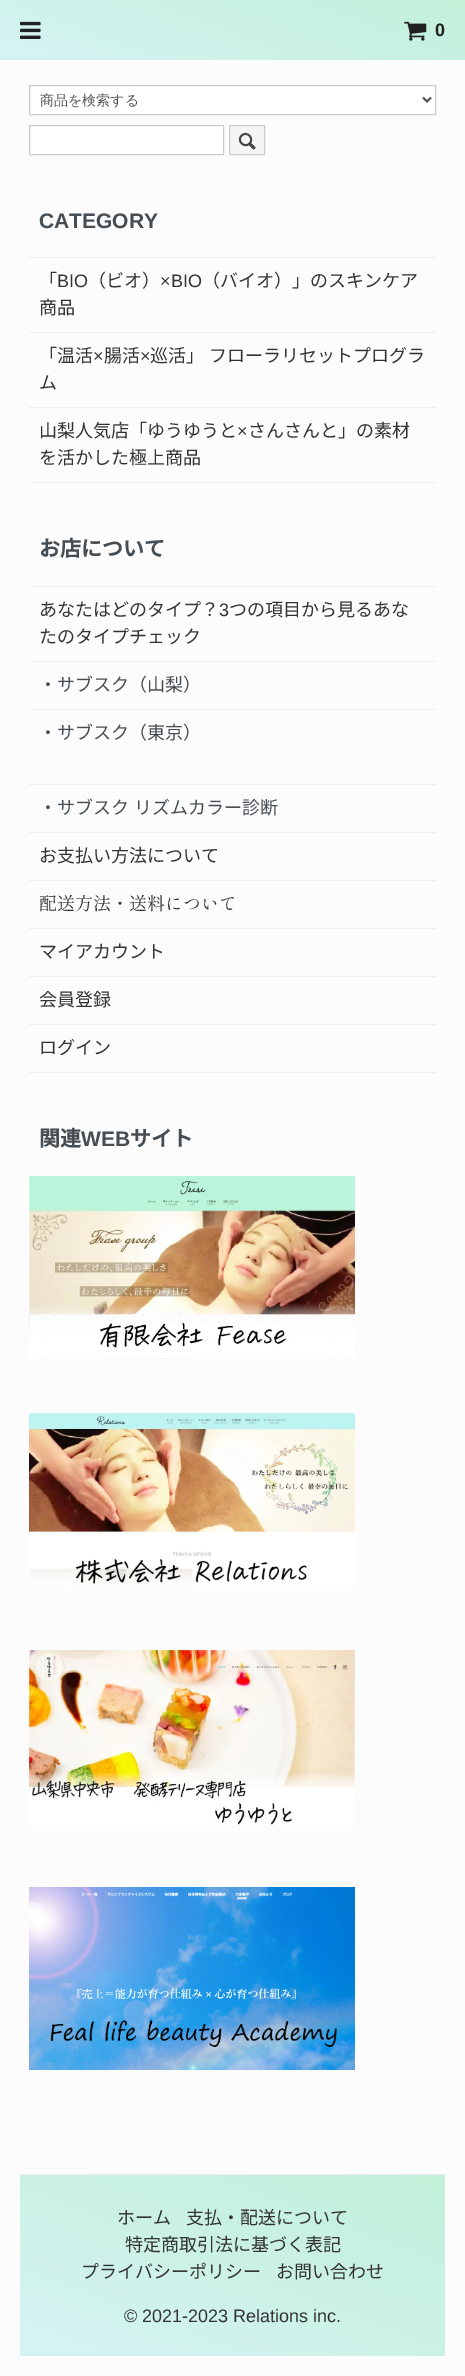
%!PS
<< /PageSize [465 2376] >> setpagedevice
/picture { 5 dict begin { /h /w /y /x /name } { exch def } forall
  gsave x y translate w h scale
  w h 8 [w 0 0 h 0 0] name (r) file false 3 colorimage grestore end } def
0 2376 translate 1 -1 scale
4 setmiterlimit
0.988 setgray
0 0 465 2376 rectfill
gsave newpath 0 0 moveto 465 0 lineto 465 60 lineto 0 60 lineto closepath clip newpath
<< /ShadingType 2 /ColorSpace /DeviceRGB /Coords [193 134 272 -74] /Extend [true true] /Function << /FunctionType 2 /Domain [0 1] /C0 [0.839 0.957 0.957] /C1 [0.761 0.941 0.851] /N 1 >> >> shfill grestore
(img1.rgb) 20 21 21 18 picture
(img2.rgb) 404 21 23 20 picture
/LiberationSans-Bold [18 0 0 -18 0 0] selectfont
0.129 setgray
435 36 moveto (0) show
1 setgray
newpath 29.5 85.5 moveto 435.5 85.5 lineto 435.5 114.5 lineto 29.5 114.5 lineto closepath gsave fill grestore
0.8 setgray
stroke
0.333 setgray
2 setlinewidth
newpath 423 97.5 moveto 427 101.5 lineto 431 97.5 lineto stroke
/WenQuanYiZenHei-Medium [14 0 0 -14 0 0] selectfont
40 105 moveto (商品を検索する) show
1 setgray
newpath 29.5 125.5 moveto 223.5 125.5 lineto 223.5 154.5 lineto 29.5 154.5 lineto closepath gsave fill grestore
0.8 setgray
1 setlinewidth
stroke
0.961 setgray
newpath 229.5 125.5 moveto 264.5 125.5 lineto 264.5 154.5 lineto 229.5 154.5 lineto closepath gsave fill grestore
0.8 setgray
stroke
(img3.rgb) 238 132 18 18 picture
/LiberationSans-Bold [21 0 0 -21 0 0] selectfont
0.275 0.306 0.329 setrgbcolor
39 228 moveto (CATEGORY) show
0.933 setgray
29 482 407 1 rectfill
29 257 407 1 rectfill
/NotoSansJP-Regular [18 0 0 -18 0 0] selectfont
0.2 setgray
39 287 moveto (「) show
/LiberationSans-Regular [18 0 0 -18 0 0] selectfont
57 287 moveto (BIO) show
/NotoSansJP-Regular [18 0 0 -18 0 0] selectfont
88 287 moveto (（ビオ）) show
/LiberationSans-Regular [18 0 0 -18 0 0] selectfont
160 287 moveto (×BIO) show
/NotoSansJP-Regular [18 0 0 -18 0 0] selectfont
202 287 moveto (（バイオ）」のスキンケア) show
39 314 moveto (商品) show
0.933 setgray
29 332 407 1 rectfill
0.2 setgray
39 362 moveto (「温活) show
/LiberationSans-Regular [18 0 0 -18 0 0] selectfont
93 362 moveto (×) show
/NotoSansJP-Regular [18 0 0 -18 0 0] selectfont
104 362 moveto (腸活) show
/LiberationSans-Regular [18 0 0 -18 0 0] selectfont
140 362 moveto (×) show
/NotoSansJP-Regular [18 0 0 -18 0 0] selectfont
150 362 moveto 1 0 32 (巡活」 フローラリセットプログラ) widthshow
39 389 moveto (ム) show
0.933 setgray
29 407 407 1 rectfill
0.2 setgray
39 437 moveto (山梨人気店「ゆうゆうと) show
/LiberationSans-Regular [18 0 0 -18 0 0] selectfont
237 437 moveto (×) show
/NotoSansJP-Regular [18 0 0 -18 0 0] selectfont
248 437 moveto (さんさんと」の素材) show
39 464 moveto (を活かした極上商品) show
/NotoSansJP-Bold [21 0 0 -21 0 0] selectfont
0.275 0.306 0.329 setrgbcolor
39 556 moveto (お店について) show
0.933 setgray
29 1072 407 1 rectfill
29 586 407 1 rectfill
/NotoSansJP-Regular [18 0 0 -18 0 0] selectfont
0.2 setgray
39 616 moveto (あなたはどのタイプ？) show
/LiberationSans-Regular [18 0 0 -18 0 0] selectfont
219 616 moveto (3) show
/NotoSansJP-Regular [18 0 0 -18 0 0] selectfont
229 616 moveto (つの項目から見るあな) show
39 643 moveto (たのタイプチェック) show
0.933 setgray
29 661 407 1 rectfill
0.275 0.306 0.329 setrgbcolor
39 691 moveto (・サブスク（山梨）) show
0.933 setgray
29 709 407 1 rectfill
0.275 0.306 0.329 setrgbcolor
39 739 moveto (・サブスク（東京）) show
0.933 setgray
29 784 407 1 rectfill
0.275 0.306 0.329 setrgbcolor
39 814 moveto 1 0 32 (・サブスク リズムカラー診断) widthshow
0.933 setgray
29 832 407 1 rectfill
0.2 setgray
39 862 moveto (お支払い方法について) show
0.933 setgray
29 880 407 1 rectfill
/ShipporiMincho-Regular [18 0 0 -18 0 0] selectfont
0.2 setgray
39 910 moveto (配送方法・送料について) show
0.933 setgray
29 928 407 1 rectfill
/NotoSansJP-Regular [18 0 0 -18 0 0] selectfont
0.2 setgray
39 958 moveto (マイアカウント) show
0.933 setgray
29 976 407 1 rectfill
0.2 setgray
39 1006 moveto (会員登録) show
0.933 setgray
29 1024 407 1 rectfill
0.2 setgray
39 1054 moveto (ログイン) show
/NotoSansJP-Bold [21 0 0 -21 0 0] selectfont
0.275 0.306 0.329 setrgbcolor
39 1146 moveto (関連) show
/LiberationSans-Bold [21 0 0 -21 0 0] selectfont
81 1146 moveto (WEB) show
/NotoSansJP-Bold [21 0 0 -21 0 0] selectfont
130 1146 moveto (サイト) show
(img4.rgb) 29 1176 326 183 picture
(img5.rgb) 29 1413 326 172 picture
(img6.rgb) 29 1650 326 175 picture
(img7.rgb) 29 1887 326 183 picture
gsave newpath 20 2175 moveto 445 2175 lineto 445 2356 lineto 20 2356 lineto closepath clip newpath
<< /ShadingType 2 /ColorSpace /DeviceRGB /Coords [175 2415 290 2116] /Extend [true true] /Function << /FunctionType 2 /Domain [0 1] /C0 [0.839 0.957 0.957] /C1 [0.761 0.941 0.851] /N 1 >> >> shfill grestore
0.933 setgray
20 2174 425 1 rectfill
/NotoSansJP-Regular [18 0 0 -18 0 0] selectfont
0.2 setgray
117 2224 moveto (ホーム) show
186 2224 moveto (支払・配送について) show
125 2251 moveto (特定商取引法に基づく表記) show
81 2278 moveto (プライバシーポリシー) show
276 2278 moveto (お問い合わせ) show
/LiberationSans-Regular [18 0 0 -18 0 0] selectfont
124 2322 moveto (© 2021-2023 Relations inc.) show
showpage
